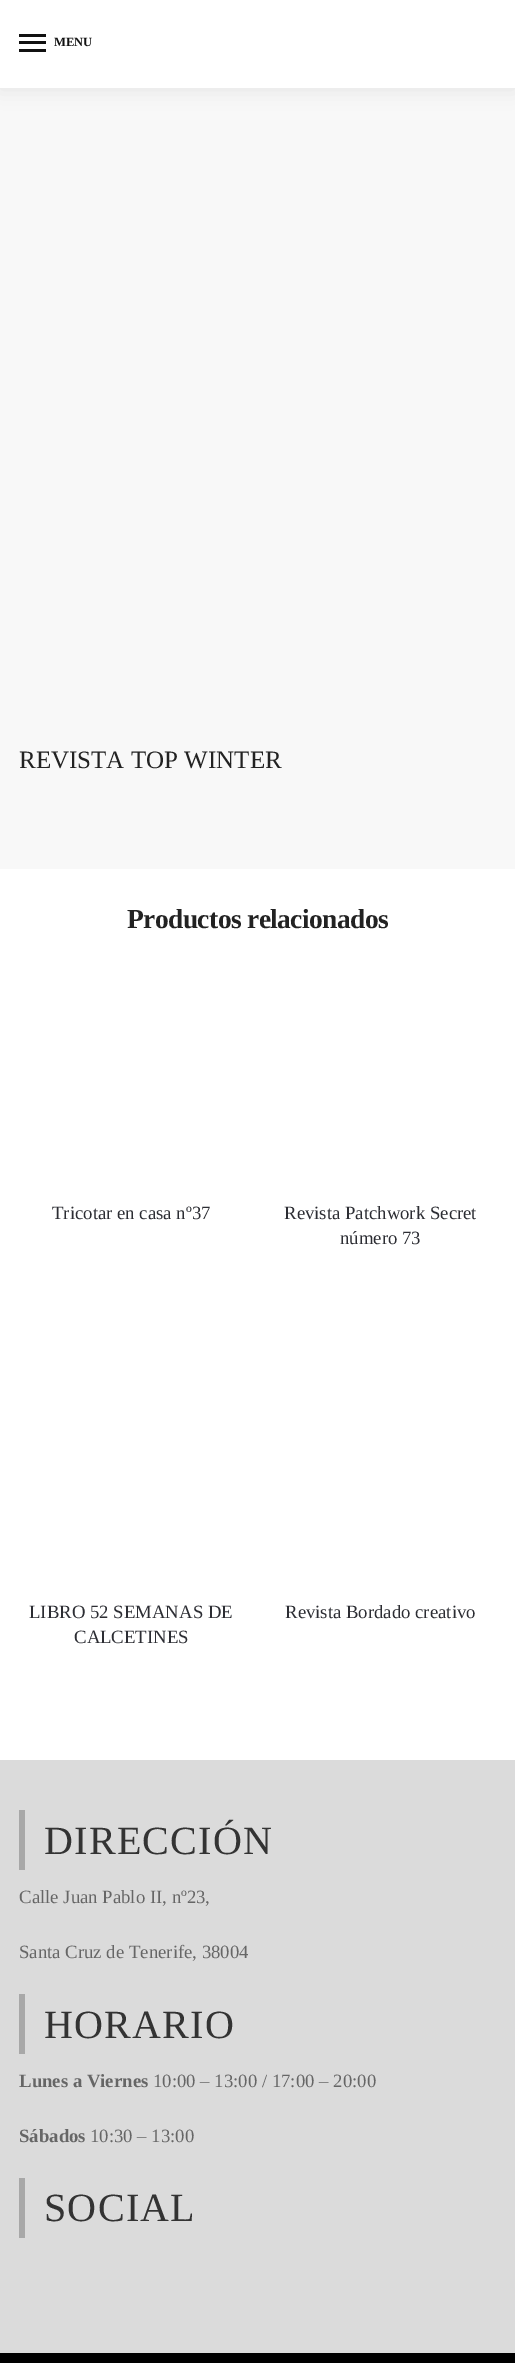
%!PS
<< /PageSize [515 2363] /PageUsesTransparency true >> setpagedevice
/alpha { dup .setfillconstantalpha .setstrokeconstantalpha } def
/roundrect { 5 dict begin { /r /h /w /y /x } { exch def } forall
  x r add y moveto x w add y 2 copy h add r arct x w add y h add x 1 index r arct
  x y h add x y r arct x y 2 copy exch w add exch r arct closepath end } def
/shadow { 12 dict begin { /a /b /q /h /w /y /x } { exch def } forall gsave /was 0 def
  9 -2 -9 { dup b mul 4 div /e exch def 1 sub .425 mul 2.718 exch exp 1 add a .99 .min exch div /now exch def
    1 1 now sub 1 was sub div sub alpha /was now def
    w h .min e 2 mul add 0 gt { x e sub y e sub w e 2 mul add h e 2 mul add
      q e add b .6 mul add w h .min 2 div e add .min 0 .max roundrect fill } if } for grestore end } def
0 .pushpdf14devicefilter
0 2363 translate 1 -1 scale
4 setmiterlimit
0.859 setgray
0 0 515 2363 rectfill
1 setgray
0 0 515 88 rectfill
0.973 setgray
0 88 515 781 rectfill
gsave
newpath 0 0 moveto 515 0 lineto 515 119 lineto 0 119 lineto closepath 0 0 moveto 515 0 lineto 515 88 lineto 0 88 lineto closepath eoclip newpath
0 setgray
0 1 515 88 0 9.5 0.08 shadow
grestore
0.067 setgray
19 34 27 3 rectfill
19 41 27 3 rectfill
/LiberationSerif-Bold [12.5 0 0 -12.5 0 0] selectfont
54 46 moveto (MENU) show
19 49 27 3 rectfill
/LiberationSerif-Regular [25 0 0 -25 0 0] selectfont
0.133 setgray
19 768 moveto (REVISTA TOP WINTER) show
1 setgray
0 869 515 891 rectfill
/LiberationSerif-Bold [27.5 0 0 -27.5 0 0] selectfont
0.133 setgray
127 928 moveto -0.6 0 (Productos relacionados) ashow
/LiberationSerif-Regular [18.75 0 0 -18.75 0 0] selectfont
0.173 0.176 0.2 setrgbcolor
52 1219 moveto (Tricotar en casa nº37) show
284 1219 moveto (Revista Patchwork Secret) show
340 1244 moveto (número 73) show
29 1618 moveto (LIBRO 52 SEMANAS DE) show
74 1643 moveto (CALCETINES) show
285 1618 moveto (Revista Bordado creativo) show
0.659 setgray
19 1810 6 60 rectfill
/LiberationSerif-Regular [40 0 0 -40 0 0] selectfont
0.2 setgray
44 1854 moveto 1.25 0 (DIRECCIÓN) ashow
/LiberationSerif-Regular [18.75 0 0 -18.75 0 0] selectfont
0.4 setgray
19 1903 moveto (Calle Juan Pablo II, nº23,) show
19 1958 moveto (Santa Cruz de Tenerife, 38004) show
0.659 setgray
19 1994 6 60 rectfill
/LiberationSerif-Regular [40 0 0 -40 0 0] selectfont
0.2 setgray
44 2038 moveto 1.25 0 (HORARIO) ashow
/LiberationSerif-Bold [18.75 0 0 -18.75 0 0] selectfont
0.4 setgray
19 2087 moveto (Lunes a Viernes) show
/LiberationSerif-Regular [18.75 0 0 -18.75 0 0] selectfont
153 2087 moveto (10:00 – 13:00 / 17:00 – 20:00) show
/LiberationSerif-Bold [18.75 0 0 -18.75 0 0] selectfont
19 2142 moveto (Sábados) show
/LiberationSerif-Regular [18.75 0 0 -18.75 0 0] selectfont
90 2142 moveto (10:30 – 13:00) show
0.659 setgray
19 2178 6 60 rectfill
/LiberationSerif-Regular [40 0 0 -40 0 0] selectfont
0.2 setgray
44 2221 moveto 1.25 0 (SOCIAL) ashow
0 setgray
0 2353 515 10 rectfill
.poppdf14devicefilter showpage
